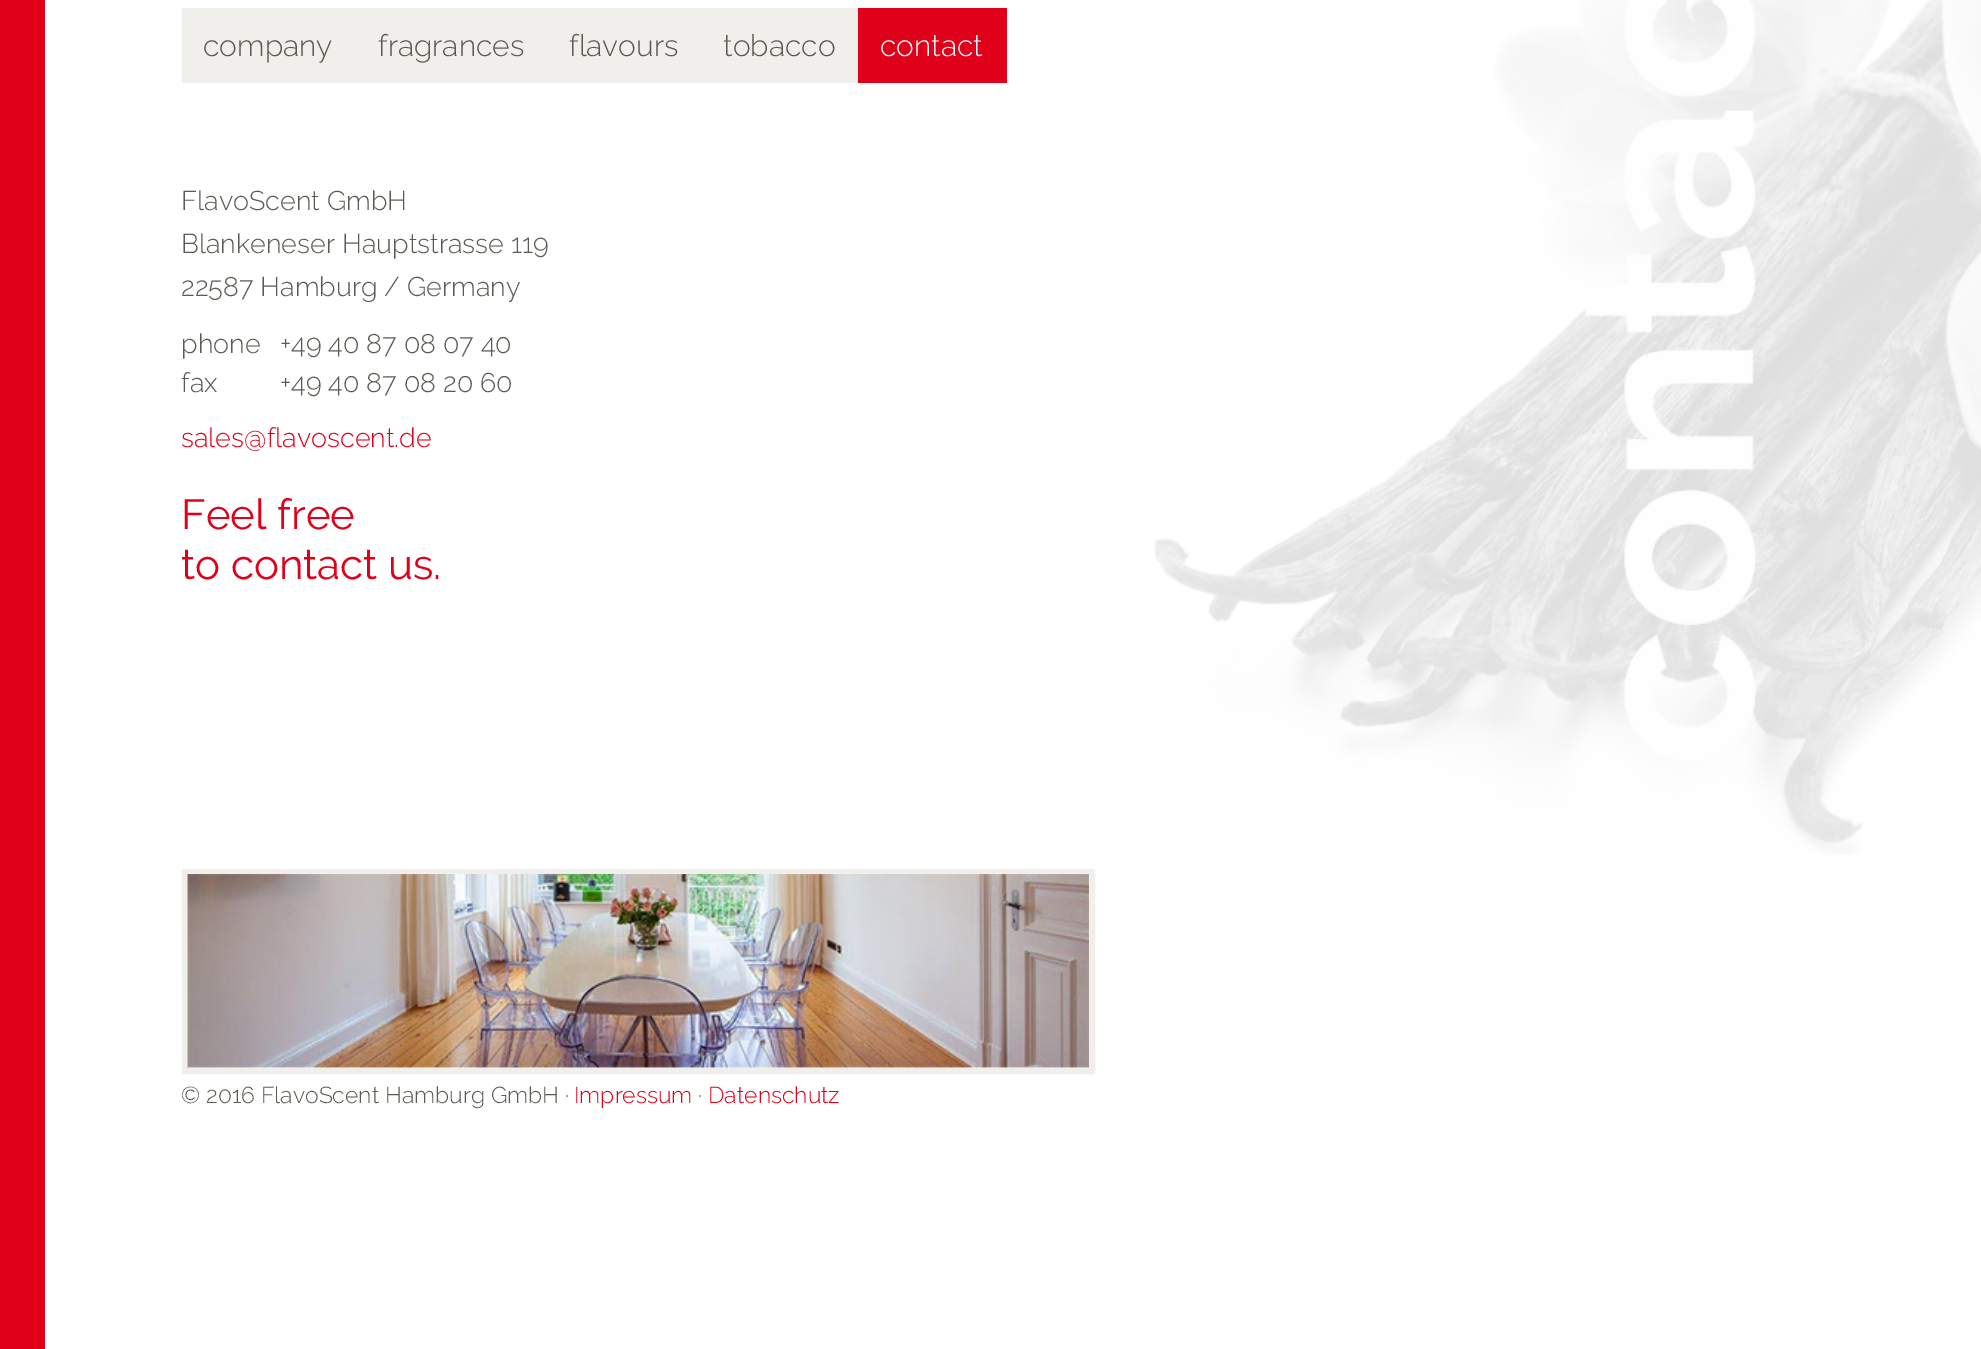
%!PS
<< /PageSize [1981 1349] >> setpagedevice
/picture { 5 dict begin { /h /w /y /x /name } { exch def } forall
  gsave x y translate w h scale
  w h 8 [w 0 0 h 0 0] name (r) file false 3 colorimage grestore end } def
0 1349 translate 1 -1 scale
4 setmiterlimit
1 setgray
0 0 1981 1349 rectfill
(img1.rgb) 1154 0 827 855 picture
0.882 0 0.102 setrgbcolor
0 0 45 1349 rectfill
0.941 0.937 0.925 setrgbcolor
182 8 676 75 rectfill
/Raleway-Light [30 0 0 -30 0 0] selectfont
0.357 0.349 0.318 setrgbcolor
203 56 moveto (company) show
378 56 moveto (fragrances) show
569 56 moveto (flavours) show
723 56 moveto (tobacco) show
0.882 0 0.102 setrgbcolor
858 8 149 75 rectfill
1 setgray
880 56 moveto (contact) show
/Raleway-Light [27 0 0 -27 0 0] selectfont
0.357 0.349 0.318 setrgbcolor
181 210 moveto (FlavoScent GmbH) show
181 253 moveto (Blankeneser Hauptstrasse 119) show
181 296 moveto (22587 Hamburg / Germany) show
181 353 moveto (phone) show
280 353 moveto (+49 40 87 08 07 40) show
181 392 moveto (fax) show
280 392 moveto (+49 40 87 08 20 60) show
0.882 0 0.102 setrgbcolor
181 447 moveto (sales@flavoscent.de) show
/Raleway-Regular [42 0 0 -42 0 0] selectfont
181 529 moveto (Feel free) show
181 579 moveto (to contact us.) show
0.941 0.937 0.925 setrgbcolor
6 setlinewidth
185 872 907 199 rectstroke
(img2.rgb) 187 874 902 194 picture
/Raleway-Light [23 0 0 -23 0 0] selectfont
0.357 0.349 0.318 setrgbcolor
181 1103 moveto (© 2016 FlavoScent Hamburg GmbH ·) show
0.882 0 0.102 setrgbcolor
574 1103 moveto (Impressum) show
0.357 0.349 0.318 setrgbcolor
698 1103 moveto (·) show
0.882 0 0.102 setrgbcolor
708 1103 moveto (Datenschutz) show
showpage
